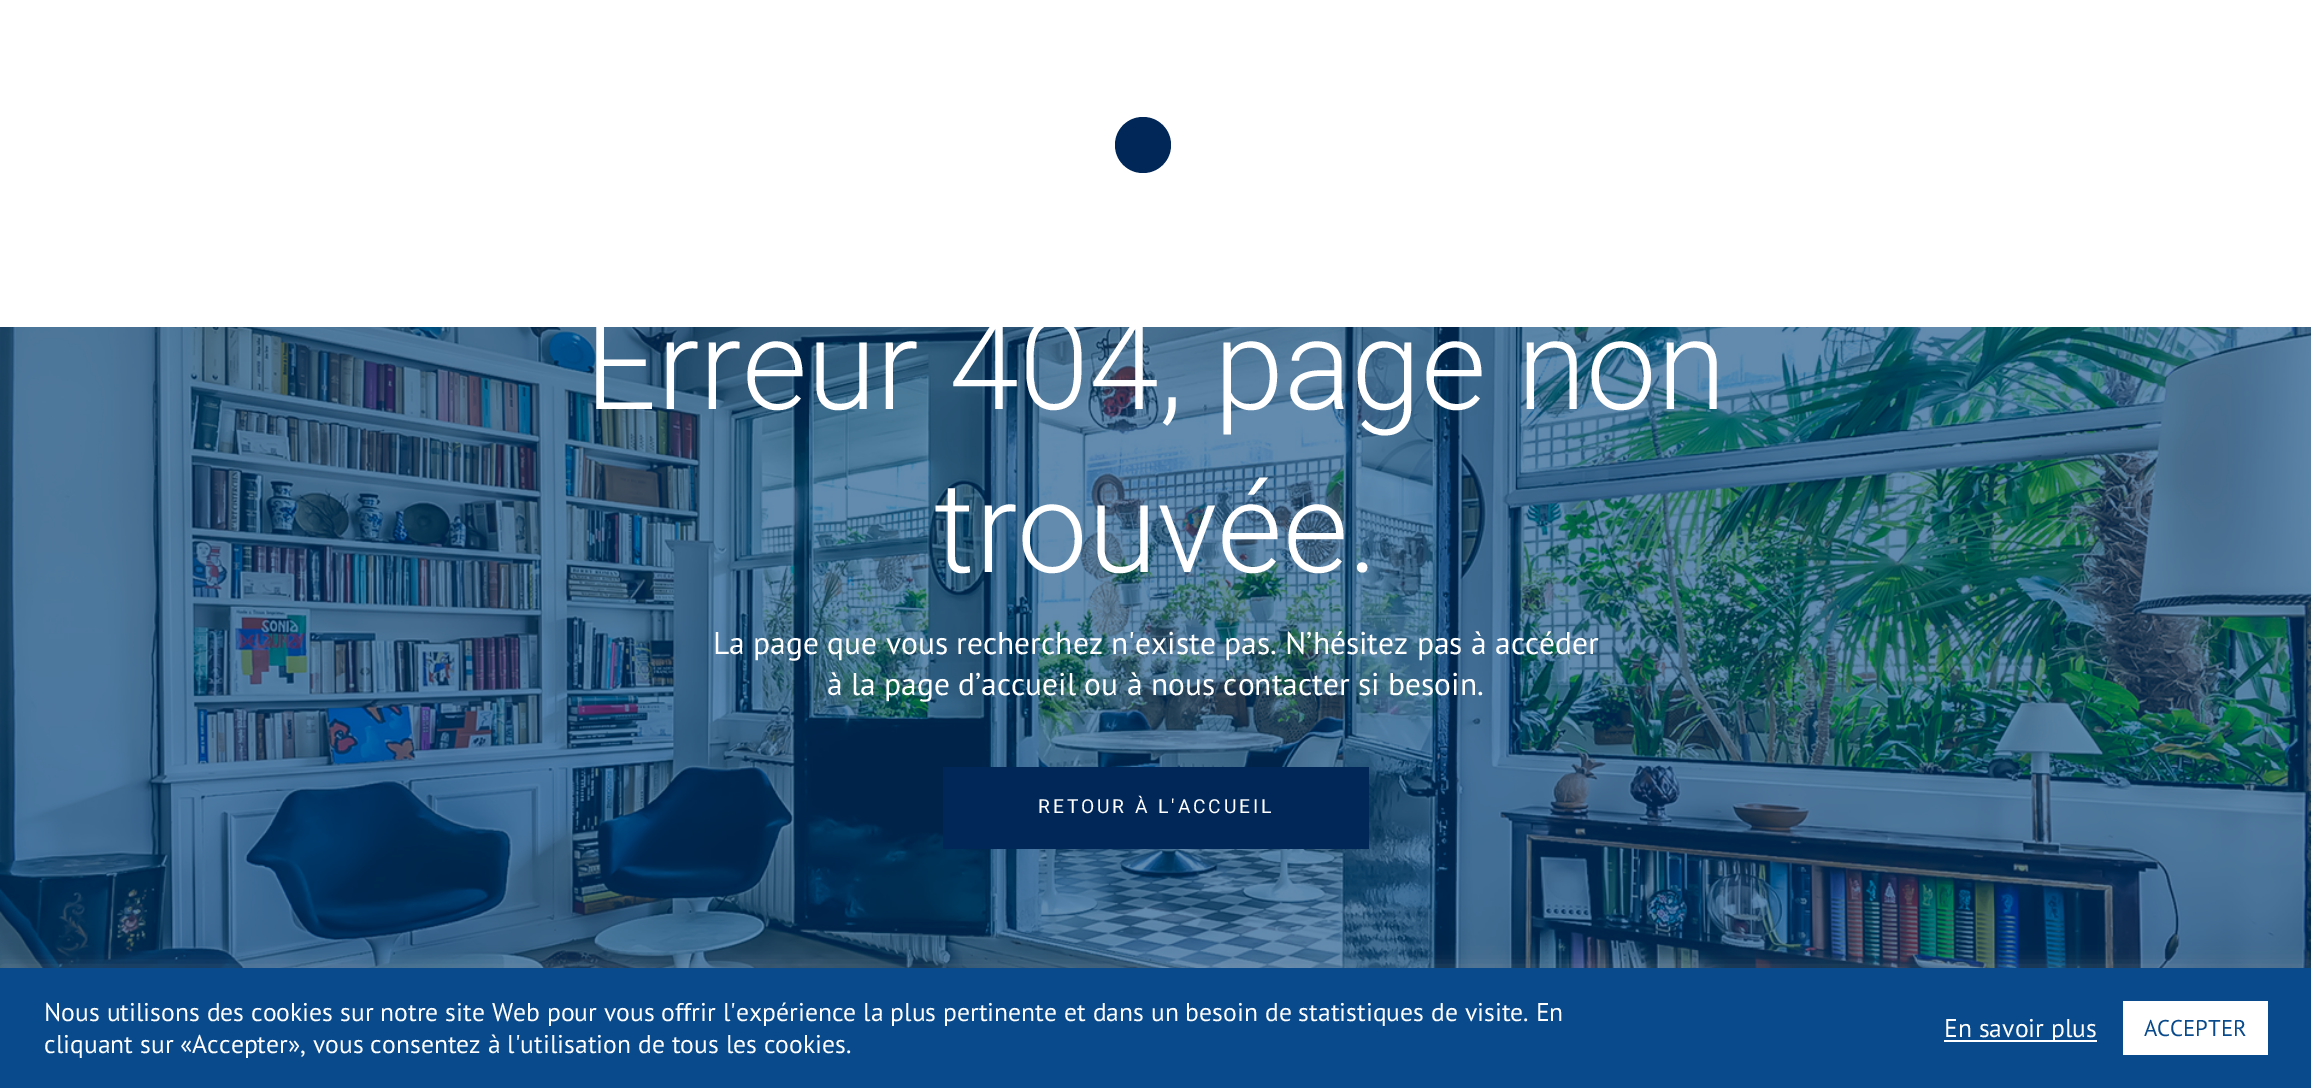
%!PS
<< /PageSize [2311 1088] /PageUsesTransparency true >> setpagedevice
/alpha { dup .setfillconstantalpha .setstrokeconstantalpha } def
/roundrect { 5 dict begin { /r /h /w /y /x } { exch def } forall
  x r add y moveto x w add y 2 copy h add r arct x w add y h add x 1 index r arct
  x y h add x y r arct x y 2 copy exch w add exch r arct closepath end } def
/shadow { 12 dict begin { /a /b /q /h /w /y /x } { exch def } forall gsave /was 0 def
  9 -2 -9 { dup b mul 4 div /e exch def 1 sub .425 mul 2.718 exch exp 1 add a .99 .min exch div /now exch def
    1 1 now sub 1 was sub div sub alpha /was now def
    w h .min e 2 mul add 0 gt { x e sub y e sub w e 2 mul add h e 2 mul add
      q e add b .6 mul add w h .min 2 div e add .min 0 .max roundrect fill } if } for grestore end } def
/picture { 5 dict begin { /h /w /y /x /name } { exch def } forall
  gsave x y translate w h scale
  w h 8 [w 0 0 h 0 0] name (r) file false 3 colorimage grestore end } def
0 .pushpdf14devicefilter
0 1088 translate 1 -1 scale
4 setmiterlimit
1 setgray
0 0 2311 1088 rectfill
0 0.153 0.345 setrgbcolor
newpath 1143 145 28 0 360 arc closepath fill
(img1.rgb) 0 327 2311 641 picture
/Roboto-Light [126 0 0 -126 0 0] selectfont
1 setgray
585 409 moveto (Erreur 404, page non) show
934 572 moveto (trouvée.) show
/PTSans-Regular [31.5 0 0 -31.5 0 0] selectfont
713 654 moveto (La page que vous recherchez n'existe pas. N’hésitez pas à accéder) show
827 695 moveto (à la page d’accueil ou à nous contacter si besoin.) show
0 0.153 0.345 setrgbcolor
943 767 426 82 rectfill
/Roboto-Regular [19.25 0 0 -19.25 0 0] selectfont
1 setgray
1038 813 moveto 2.9 0 (RETOUR À L'ACCUEIL) ashow
0.675 0.671 0.671 setrgbcolor
0 966 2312 121 0 9 0.3 shadow
0.031 0.29 0.545 setrgbcolor
0 968 2311 120 rectfill
/PTSans-Regular [25.67 0 0 -25.67 0 0] selectfont
1 setgray
44 1021 moveto (Nous utilisons des cookies sur notre site Web pour vous offrir l'expérience la plus pertinente et dans un besoin de statistiques de visite. En) show
44 1053 moveto (cliquant sur «Accepter», vous consentez à l'utilisation de tous les cookies.) show
1944 1040 153 2 rectfill
1944 1037 moveto (En savoir plus) show
2123 1001 145 54 rectfill
/PTSans-Regular [22.75 0 0 -22.75 0 0] selectfont
0.031 0.29 0.545 setrgbcolor
2144 1036 moveto (ACCEPTER) show
.poppdf14devicefilter showpage
